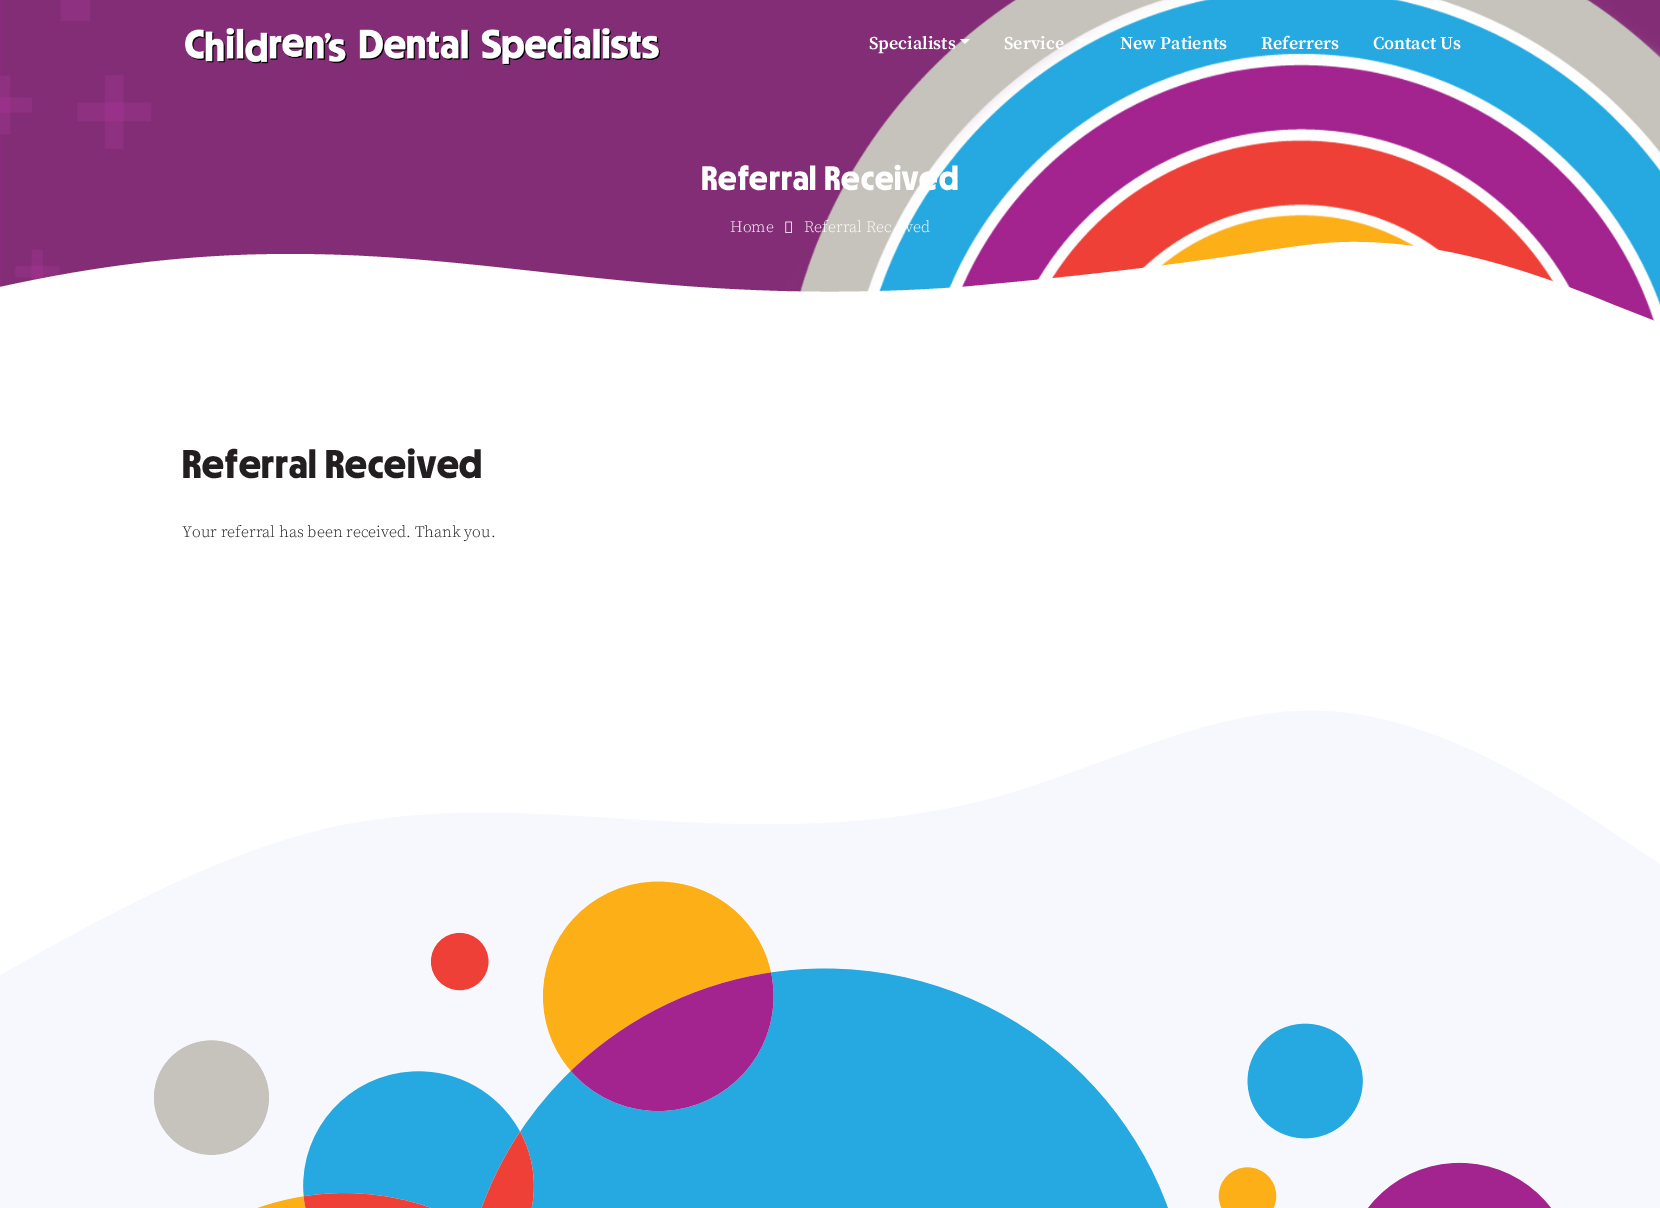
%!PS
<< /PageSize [1660 1208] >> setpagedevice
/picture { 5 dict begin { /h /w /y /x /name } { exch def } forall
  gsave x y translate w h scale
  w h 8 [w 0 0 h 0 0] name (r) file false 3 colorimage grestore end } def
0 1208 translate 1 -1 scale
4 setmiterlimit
1 setgray
0 0 1660 1208 rectfill
(img2.rgb) 0 0 1660 323 picture
(img1.rgb) 185 28 475 37 picture
/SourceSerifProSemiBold-SemiBold [18 0 0 -18 0 0] selectfont
869 49 moveto (Specialists) show
newpath 960 39 moveto 970 39 lineto 965 44 lineto closepath fill
1004 49 moveto (Service) show
newpath 1076 39 moveto 1086 39 lineto 1081 44 lineto closepath fill
1120 49 moveto (New Patients) show
1261 49 moveto (Referrers) show
1373 49 moveto (Contact Us) show
/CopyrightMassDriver-Bold [34 0 0 -34 0 0] selectfont
701 190 moveto 0.9 0 (Referral Received) ashow
/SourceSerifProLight-Light [16 0 0 -16 0 0] selectfont
730 232 moveto (Home) show
(img3.rgb) 785 221 7 12 picture
804 232 moveto (Referral Rec) show
905 232 moveto (ved) show
newpath 0 287 moveto 394 200 560 316 961 287 curveto 1284 258 1291 237 1383 243 curveto 1476 249 1568 286 1614 305 curveto 1660 323 lineto 1660 360 lineto 0 360 lineto closepath fill
/CopyrightMassDriver-Bold [40 0 0 -40 0 0] selectfont
0.137 0.122 0.125 setrgbcolor
182 478 moveto 0.9 0 (Referral Received) ashow
/SourceSerifProLight-Light [16 0 0 -16 0 0] selectfont
182 537 moveto (Your referral has been received. Thank you.) show
0.965 0.973 0.992 setrgbcolor
0 710 1660 498 rectfill
(img4.rgb) 154 881 1397 327 picture
1 setgray
newpath 0 975 moveto 55 944 lineto 111 914 221 852 332 827 curveto 443 803 553 815 664 821 curveto 775 827 885 827 996 797 curveto 1107 766 1217 704 1328 711 curveto 1439 717 1549 790 1605 827 curveto 1660 864 lineto 1660 606 lineto 0 606 lineto closepath fill
showpage
